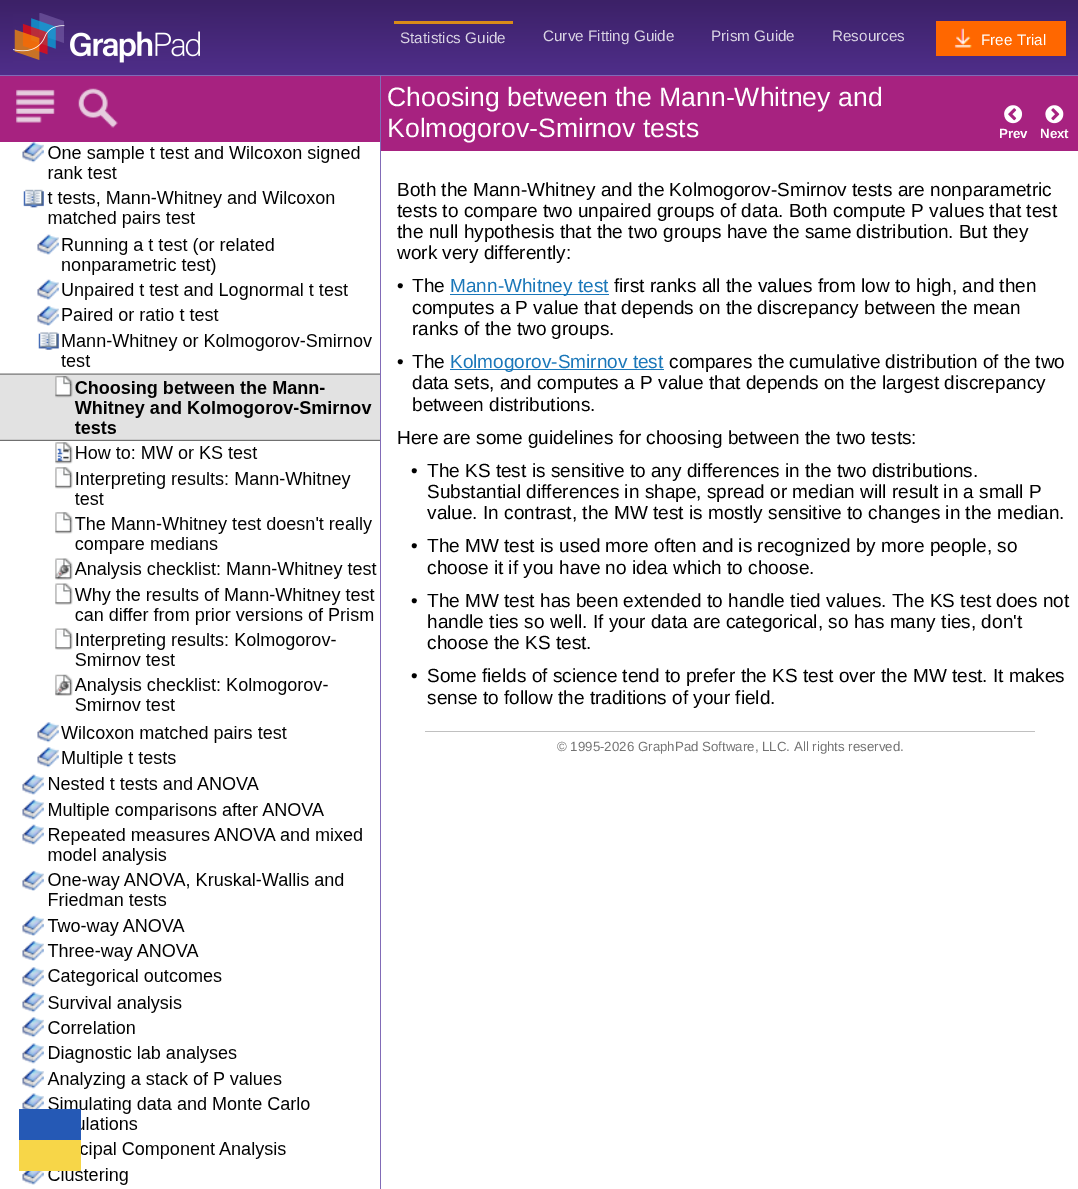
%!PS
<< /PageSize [1078 1189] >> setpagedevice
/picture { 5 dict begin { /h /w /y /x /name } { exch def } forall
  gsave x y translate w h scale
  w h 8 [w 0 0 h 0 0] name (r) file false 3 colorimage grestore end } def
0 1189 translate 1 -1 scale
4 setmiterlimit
0.506 0.42 0.718 setrgbcolor
0 0 1078 1189 rectfill
gsave newpath 0 0 moveto 1078 0 lineto 1078 75 lineto 0 75 lineto closepath clip newpath
<< /ShadingType 2 /ColorSpace /DeviceRGB /Coords [539 0 539 75] /Extend [true true] /Function << /FunctionType 2 /Domain [0 1] /C0 [0.235 0.129 0.404] /C1 [0.31 0.18 0.541] /N 1 >> >> shfill grestore
(img1.rgb) 13 13 187 50 picture
0.851 0.545 0.09 setrgbcolor
394 21 119 3 rectfill
/LiberationSans-Regular [15.25 0 0 -15.25 0 0] selectfont
0.855 0.831 0.894 setrgbcolor
400 43 moveto (Statistics Guide) show
543 41 moveto (Curve Fitting Guide) show
711 41 moveto (Prism Guide) show
832 41 moveto (Resources) show
1 0.404 0 setrgbcolor
936 21 130 35 rectfill
(img2.rgb) 954 28 18 20 picture
1 setgray
981 45 moveto (Free Trial) show
0.655 0.133 0.502 setrgbcolor
0 76 380 66 rectfill
(img3.rgb) 16 89 39 34 picture
(img4.rgb) 78 88 40 40 picture
(img5.rgb) 0 142 380 1047 picture
1 setgray
381 151 697 1038 rectfill
0.655 0.133 0.502 setrgbcolor
381 76 697 75 rectfill
/LiberationSans-Regular [26.6 0 0 -26.6 0 0] selectfont
1 setgray
387 106 moveto (Choosing between the Mann-Whitney and) show
387 137 moveto (Kolmogorov-Smirnov tests) show
(img6.rgb) 1004 105 19 19 picture
/LiberationSans-Bold [13.3 0 0 -13.3 0 0] selectfont
999 138 moveto (Prev) show
(img7.rgb) 1045 105 19 19 picture
1040 138 moveto (Next) show
/LiberationSans-Regular [19 0 0 -19 0 0] selectfont
0 setgray
397 196 moveto (Both the Mann-Whitney and the Kolmogorov-Smirnov tests are nonparametric) show
397 217 moveto (tests to compare two unpaired groups of data. Both compute P values that test) show
397 238 moveto (the null hypothesis that the two groups have the same distribution. But they) show
397 259 moveto (work very differently:) show
397 292 moveto (•) show
412 292 moveto (The) show
0.102 0.467 0.725 setrgbcolor
450 294 159 1 rectfill
450 292 moveto (Mann-Whitney test) show
0 setgray
614 292 moveto (first ranks all the values from low to high, and then) show
412 314 moveto (computes a P value that depends on the discrepancy between the mean) show
412 335 moveto (ranks of the two groups.) show
397 368 moveto (•) show
412 368 moveto (The) show
0.102 0.467 0.725 setrgbcolor
450 369 214 1 rectfill
450 368 moveto (Kolmogorov-Smirnov test) show
0 setgray
669 368 moveto (compares the cumulative distribution of the two) show
412 389 moveto (data sets, and computes a P value that depends on the largest discrepancy) show
412 411 moveto (between distributions.) show
397 444 moveto (Here are some guidelines for choosing between the two tests:) show
411 477 moveto (•) show
427 477 moveto (The KS test is sensitive to any differences in the two distributions.) show
427 498 moveto (Substantial differences in shape, spread or median will result in a small P) show
427 519 moveto (value. In contrast, the MW test is mostly sensitive to changes in the median.) show
411 552 moveto (•) show
427 552 moveto (The MW test is used more often and is recognized by more people, so) show
427 574 moveto (choose it if you have no idea which to choose.) show
411 607 moveto (•) show
427 607 moveto (The MW test has been extended to handle tied values. The KS test does not) show
427 628 moveto (handle ties so well. If your data are categorical, so has many ties, don't) show
427 649 moveto (choose the KS test.) show
411 682 moveto (•) show
427 682 moveto (Some fields of science tend to prefer the KS test over the MW test. It makes) show
427 704 moveto (sense to follow the traditions of your field.) show
0.753 setgray
425 731 610 1 rectfill
/LiberationSans-Regular [13.3 0 0 -13.3 0 0] selectfont
0.451 setgray
557 751 moveto (© 1995-2026 GraphPad Software, LLC. All rights reserved.) show
0.145 0.349 0.71 setrgbcolor
19 1109 62 31 rectfill
0.969 0.839 0.282 setrgbcolor
19 1140 62 31 rectfill
showpage
